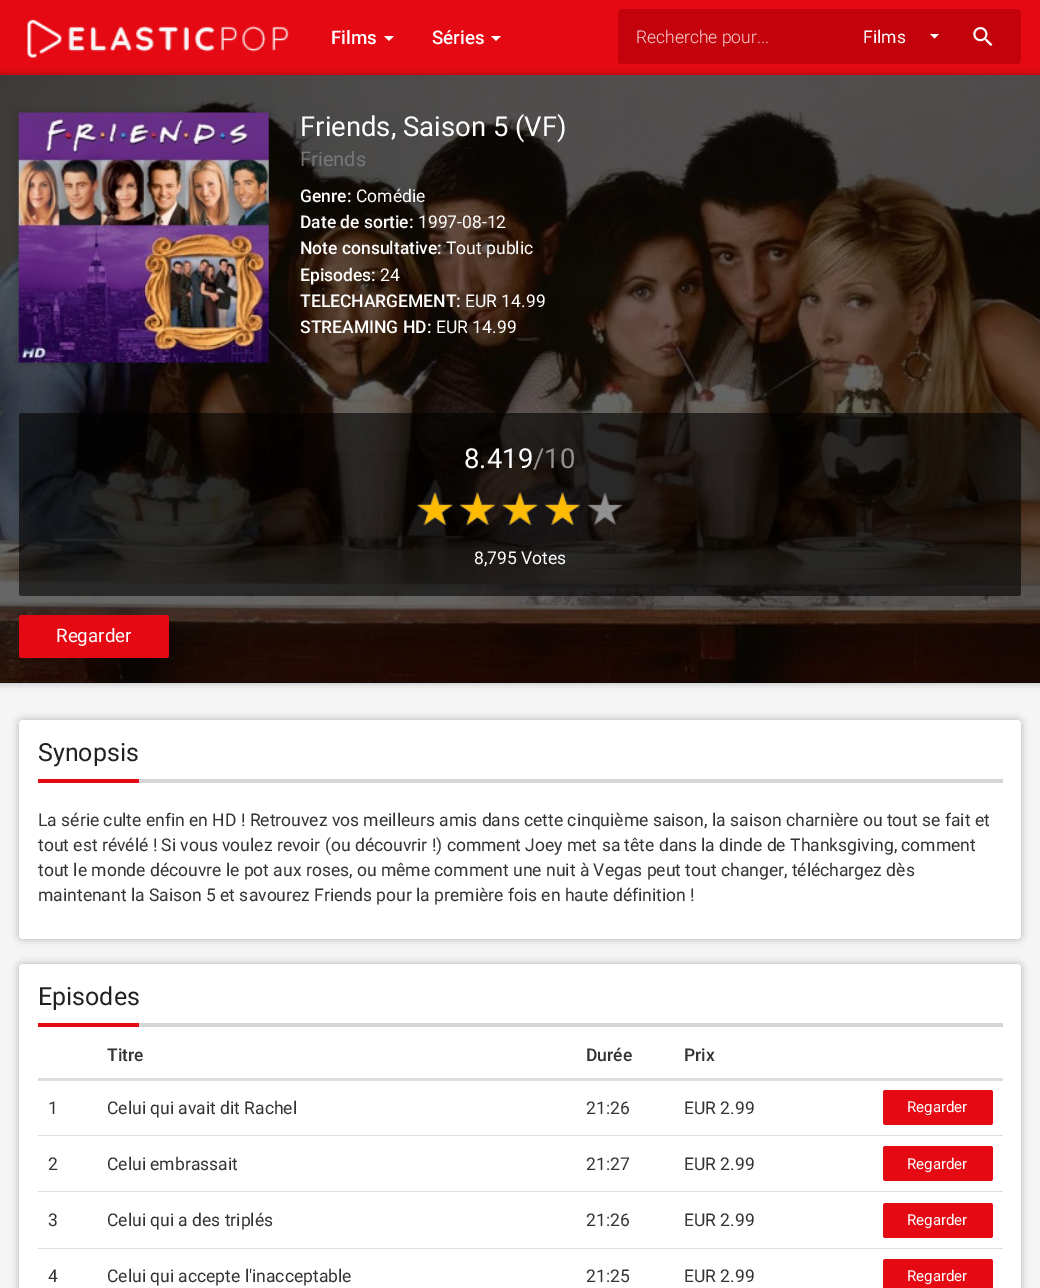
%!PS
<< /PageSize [1040 1288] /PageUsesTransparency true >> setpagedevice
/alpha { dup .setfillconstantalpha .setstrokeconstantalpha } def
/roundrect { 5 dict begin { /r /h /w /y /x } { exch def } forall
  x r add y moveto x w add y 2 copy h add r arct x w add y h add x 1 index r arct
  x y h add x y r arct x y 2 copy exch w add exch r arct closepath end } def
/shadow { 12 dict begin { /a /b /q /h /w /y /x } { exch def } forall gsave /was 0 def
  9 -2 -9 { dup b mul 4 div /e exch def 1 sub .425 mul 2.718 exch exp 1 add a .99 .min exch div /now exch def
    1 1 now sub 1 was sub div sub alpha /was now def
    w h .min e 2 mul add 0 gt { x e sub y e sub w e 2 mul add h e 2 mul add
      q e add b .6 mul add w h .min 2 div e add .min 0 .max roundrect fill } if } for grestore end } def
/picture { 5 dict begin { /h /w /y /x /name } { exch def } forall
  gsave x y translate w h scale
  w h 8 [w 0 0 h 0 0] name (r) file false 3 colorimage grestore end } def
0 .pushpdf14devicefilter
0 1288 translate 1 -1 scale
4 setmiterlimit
0.961 setgray
0 0 1040 1288 rectfill
0.898 0.035 0.078 setrgbcolor
0 0 1040 75 rectfill
(img1.rgb) 27 19 262 39 picture
/Roboto-Medium [18.75 0 0 -18.75 0 0] selectfont
1 setgray
331 44 moveto (Films) show
newpath 384 36 moveto 394 36 lineto 389 41 lineto closepath fill
432 44 moveto (Séries) show
newpath 491 36 moveto 501 36 lineto 496 41 lineto closepath fill
0.765 0.008 0.047 setrgbcolor
618 9 403 55 4 roundrect fill
/Roboto-Light [17.5 0 0 -17.5 0 0] selectfont
0.961 0.843 0.847 setrgbcolor
636 43 moveto (Recherche pour...) show
/Roboto-Regular [17.5 0 0 -17.5 0 0] selectfont
1 setgray
863 43 moveto (Films) show
newpath 930 34 moveto 939 34 lineto 934.5 38.5 lineto closepath fill
(img2.rgb) 973 27 20 20 picture
0 setgray
0 75 1040 608 0 4 0.27 shadow
0.133 0.122 0.122 setrgbcolor
0 682 1040 1 rectfill
(img3.rgb) 0 75 1040 608 picture
0.6 alpha
0 setgray
0 75 1040 608 rectfill
1 alpha
19 113 250 250 0 4 0.27 shadow
(img4.rgb) 18 112 251 251 picture
/Roboto-Regular [27.5 0 0 -27.5 0 0] selectfont
1 setgray
300 136 moveto (Friends, Saison 5 \(VF\)) show
/Roboto-Regular [20 0 0 -20 0 0] selectfont
0.467 setgray
300 166 moveto (Friends) show
/Roboto-Medium [17.5 0 0 -17.5 0 0] selectfont
1 setgray
300 202 moveto (Genre:) show
/Roboto-Regular [17.5 0 0 -17.5 0 0] selectfont
356 202 moveto (Comédie) show
/Roboto-Medium [17.5 0 0 -17.5 0 0] selectfont
300 228 moveto (Date de sortie:) show
/Roboto-Regular [17.5 0 0 -17.5 0 0] selectfont
418 228 moveto (1997-08-12) show
/Roboto-Medium [17.5 0 0 -17.5 0 0] selectfont
300 254 moveto (Note consultative:) show
/Roboto-Regular [17.5 0 0 -17.5 0 0] selectfont
446 254 moveto (Tout public) show
/Roboto-Medium [17.5 0 0 -17.5 0 0] selectfont
300 281 moveto (Episodes:) show
/Roboto-Regular [17.5 0 0 -17.5 0 0] selectfont
380 281 moveto (24) show
/Roboto-Medium [17.5 0 0 -17.5 0 0] selectfont
300 307 moveto (TELECHARGEMENT:) show
/Roboto-Regular [17.5 0 0 -17.5 0 0] selectfont
465 307 moveto (EUR 14.99) show
/Roboto-Medium [17.5 0 0 -17.5 0 0] selectfont
300 333 moveto (STREAMING HD:) show
/Roboto-Regular [17.5 0 0 -17.5 0 0] selectfont
436 333 moveto (EUR 14.99) show
0.6 alpha
0 setgray
19 413 1002 183 2.5 roundrect fill
/Roboto-Regular [27.5 0 0 -27.5 0 0] selectfont
1 alpha
1 setgray
464 468 moveto (8.419) show
0.569 setgray
533 468 moveto (/10) show
(img5.rgb) 417 492 206 34 picture
(img6.rgb) 417 492 164 34 picture
/Roboto-Regular [17.5 0 0 -17.5 0 0] selectfont
1 setgray
474 564 moveto (8,795 Votes) show
0.898 0.035 0.078 setrgbcolor
19 615 150 43 2.5 roundrect fill
/Roboto-Regular [18.75 0 0 -18.75 0 0] selectfont
1 setgray
56 642 moveto (Regarder) show
0 setgray
19 720 1002 219 4 4 0.27 shadow
1 setgray
19 720 1002 219 4 roundrect fill
0.835 setgray
139 779 864 4 rectfill
0.898 0.035 0.078 setrgbcolor
38 779 101 4 rectfill
/Roboto-Regular [25 0 0 -25 0 0] selectfont
0.129 setgray
38 761 moveto (Synopsis) show
/Roboto-Regular [17.5 0 0 -17.5 0 0] selectfont
0.2 setgray
38 826 moveto (La série culte enfin en HD ! Retrouvez vos meilleurs amis dans cette cinquième saison, la saison charnière ou tout se fait et) show
38 851 moveto (tout est révélé ! Si vous voulez revoir \(ou découvrir !\) comment Joey met sa tête dans la dinde de Thanksgiving, comment) show
38 876 moveto (tout le monde découvre le pot aux roses, ou même comment une nuit à Vegas peut tout changer, téléchargez dès) show
38 901 moveto (maintenant la Saison 5 et savourez Friends pour la première fois en haute définition !) show
0 setgray
19 964 1002 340 4 4 0.27 shadow
1 setgray
19 964 1002 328 4 roundrect fill
0.835 setgray
139 1023 864 4 rectfill
0.898 0.035 0.078 setrgbcolor
38 1023 101 4 rectfill
/Roboto-Regular [25 0 0 -25 0 0] selectfont
0.129 setgray
38 1005 moveto (Episodes) show
/Roboto-Medium [17.5 0 0 -17.5 0 0] selectfont
0.2 setgray
107 1061 moveto (Titre) show
586 1061 moveto (Durée) show
684 1061 moveto (Prix) show
0.867 setgray
38 1078 965 3 rectfill
/Roboto-Regular [17.5 0 0 -17.5 0 0] selectfont
0.2 setgray
48 1114 moveto (1) show
107 1114 moveto (Celui qui avait dit Rachel) show
586 1114 moveto (21:26) show
684 1114 moveto (EUR 2.99) show
0.898 0.035 0.078 setrgbcolor
883 1090 110 35 2.5 roundrect fill
/Roboto-Regular [15 0 0 -15 0 0] selectfont
1 setgray
907 1112 moveto (Regarder) show
/Roboto-Regular [17.5 0 0 -17.5 0 0] selectfont
0.2 setgray
48 1170 moveto (2) show
107 1170 moveto (Celui embrassait) show
586 1170 moveto (21:27) show
684 1170 moveto (EUR 2.99) show
0.867 setgray
38 1135 965 1 rectfill
0.898 0.035 0.078 setrgbcolor
883 1146 110 35 2.5 roundrect fill
/Roboto-Regular [15 0 0 -15 0 0] selectfont
1 setgray
907 1169 moveto (Regarder) show
/Roboto-Regular [17.5 0 0 -17.5 0 0] selectfont
0.2 setgray
48 1226 moveto (3) show
107 1226 moveto (Celui qui a des triplés) show
586 1226 moveto (21:26) show
684 1226 moveto (EUR 2.99) show
0.867 setgray
38 1191 965 1 rectfill
0.898 0.035 0.078 setrgbcolor
883 1203 110 35 2.5 roundrect fill
/Roboto-Regular [15 0 0 -15 0 0] selectfont
1 setgray
907 1225 moveto (Regarder) show
/Roboto-Regular [17.5 0 0 -17.5 0 0] selectfont
0.2 setgray
48 1282 moveto (4) show
107 1282 moveto (Celui qui accepte l'inacceptable) show
586 1282 moveto (21:25) show
684 1282 moveto (EUR 2.99) show
0.867 setgray
38 1248 965 1 rectfill
0.898 0.035 0.078 setrgbcolor
883 1259 110 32 2.5 roundrect fill
/Roboto-Regular [15 0 0 -15 0 0] selectfont
1 setgray
907 1281 moveto (Regarder) show
.poppdf14devicefilter showpage
